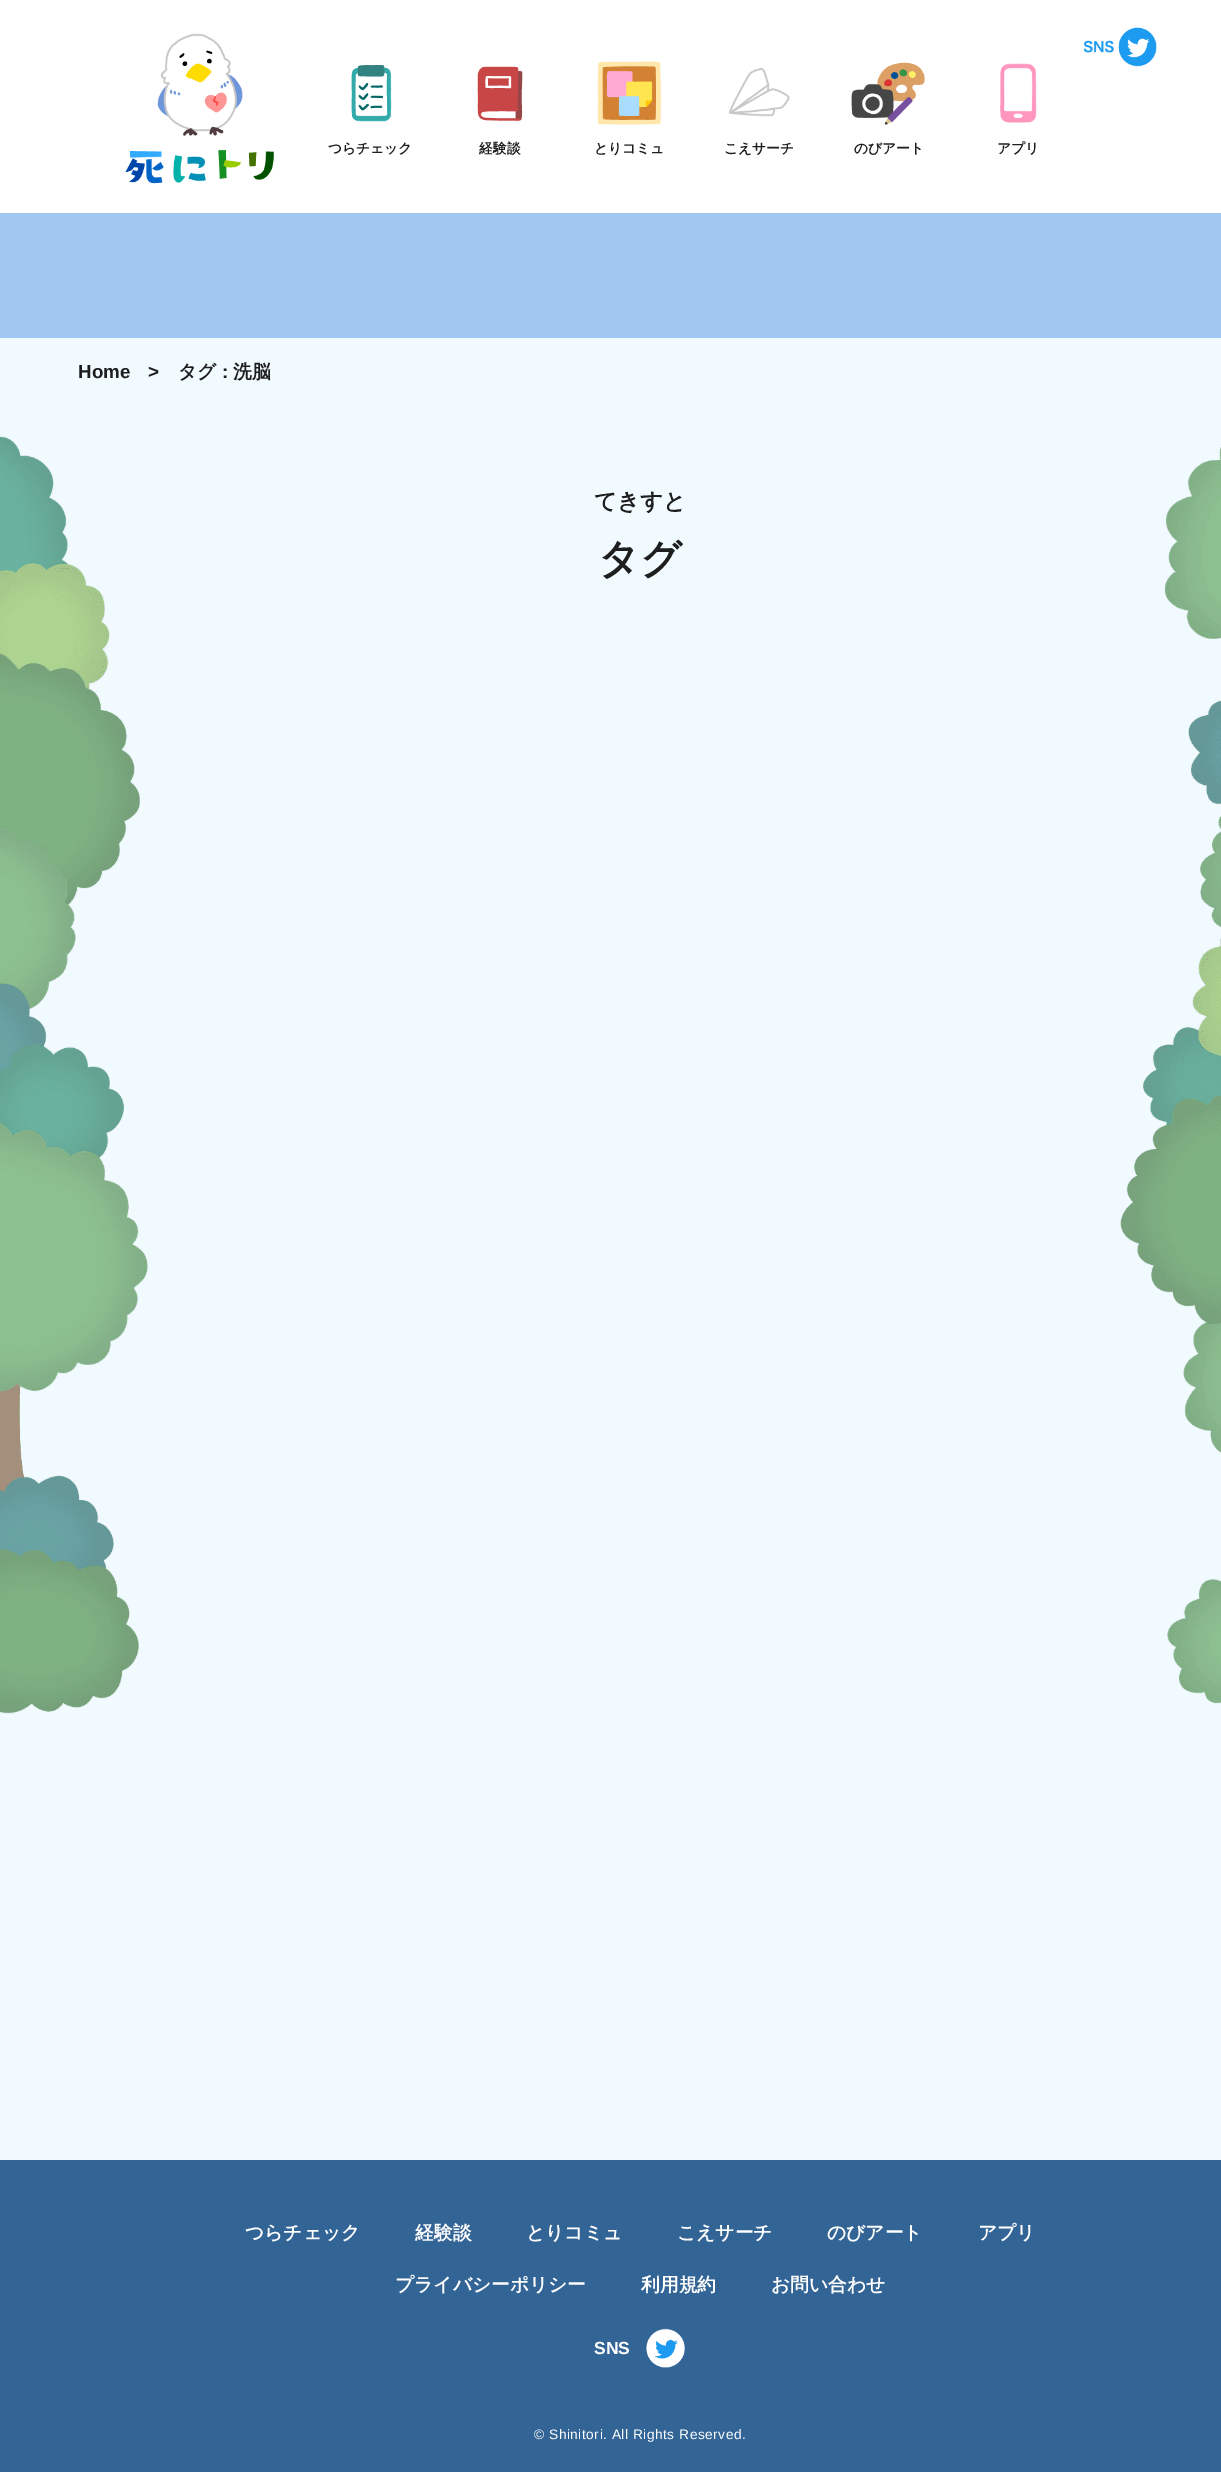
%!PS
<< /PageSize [1221 2472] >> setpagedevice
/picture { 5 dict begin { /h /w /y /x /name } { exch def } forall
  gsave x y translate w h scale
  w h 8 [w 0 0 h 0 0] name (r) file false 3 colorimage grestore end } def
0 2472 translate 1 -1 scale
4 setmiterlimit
0.941 0.98 1 setrgbcolor
0 0 1221 2472 rectfill
1 setgray
0 0 1221 213 rectfill
(img1.rgb) 125 33 149 151 picture
(img2.rgb) 351 65 41 57 picture
/WenQuanYiZenHei-Bold [13.75 0 0 -13.75 0 0] selectfont
0.118 setgray
328 153 moveto (つらチェック) show
(img3.rgb) 477 66 46 56 picture
479 153 moveto (経験談) show
(img4.rgb) 597 61 65 64 picture
594 153 moveto (とりコミュ) show
(img5.rgb) 728 67 62 50 picture
724 153 moveto (こえサーチ) show
(img6.rgb) 851 62 74 63 picture
854 153 moveto (のびアート) show
(img7.rgb) 1000 63 37 60 picture
997 153 moveto (アプリ) show
(img8.rgb) 1083 27 74 40 picture
0.627 0.784 0.941 setrgbcolor
0 213 1221 125 rectfill
/LiberationSans-Bold [18.75 0 0 -18.75 0 0] selectfont
0.118 setgray
78 378 moveto (Home) show
148 378 moveto (>) show
/WenQuanYiZenHei-Bold [18.75 0 0 -18.75 0 0] selectfont
178 378 moveto (タグ) show
/LiberationSans-Bold [18.75 0 0 -18.75 0 0] selectfont
222 378 moveto (:) show
/WenQuanYiZenHei-Bold [18.75 0 0 -18.75 0 0] selectfont
233 378 moveto (洗脳) show
(img9.rgb) 0 436 148 1278 picture
/WenQuanYiZenHei-Bold [22.5 0 0 -22.5 0 0] selectfont
594 509 moveto (てきすと) show
/WenQuanYiZenHei-Bold [41 0 0 -41 0 0] selectfont
598 573 moveto (タグ) show
(img10.rgb) 1120 447 101 1257 picture
0.196 0.392 0.588 setrgbcolor
0 2160 1221 312 rectfill
/WenQuanYiZenHei-Bold [18.75 0 0 -18.75 0 0] selectfont
1 setgray
245 2239 moveto (つらチェック) show
415 2239 moveto (経験談) show
526 2239 moveto (とりコミュ) show
677 2239 moveto (こえサーチ) show
827 2239 moveto (のびアート) show
978 2239 moveto (アプリ) show
395 2291 moveto (プライバシーポリシー) show
641 2291 moveto (利用規約) show
771 2291 moveto (お問い合わせ) show
/LiberationSans-Bold [17.5 0 0 -17.5 0 0] selectfont
594 2354 moveto (SNS) show
(img11.rgb) 646 2328 39 40 picture
/LiberationSans-Regular [13.75 0 0 -13.75 0 0] selectfont
534 2439 moveto 0.5 0 (© Shinitori. All Rights Reserved.) ashow
showpage
